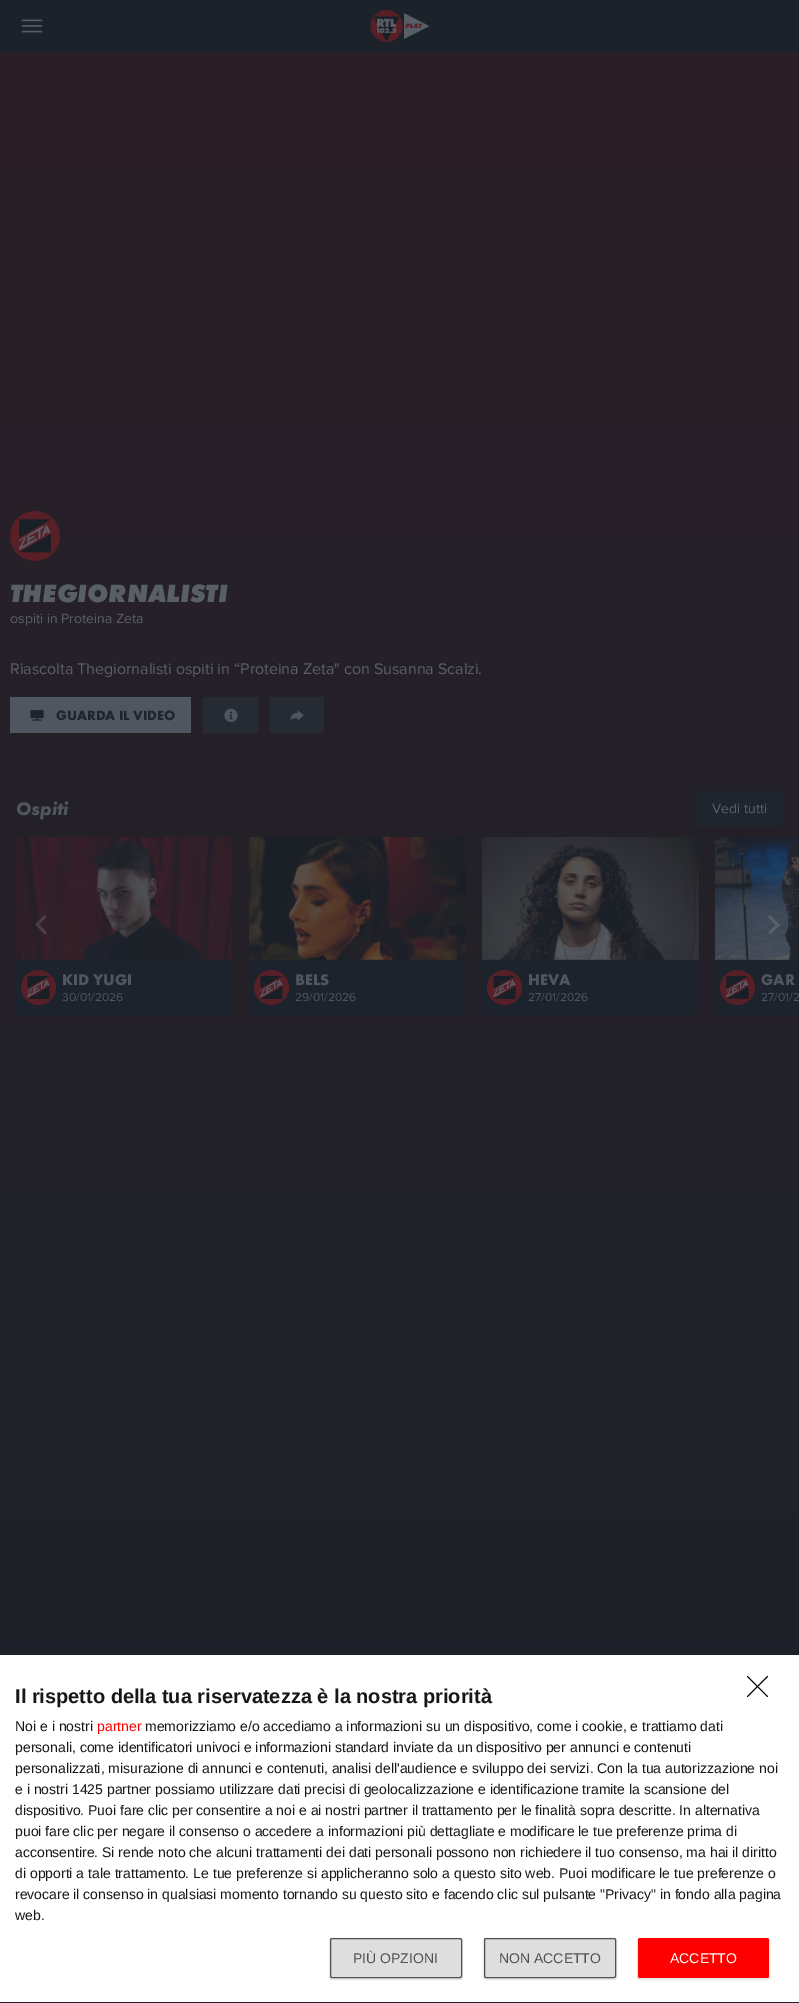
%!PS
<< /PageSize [799 2003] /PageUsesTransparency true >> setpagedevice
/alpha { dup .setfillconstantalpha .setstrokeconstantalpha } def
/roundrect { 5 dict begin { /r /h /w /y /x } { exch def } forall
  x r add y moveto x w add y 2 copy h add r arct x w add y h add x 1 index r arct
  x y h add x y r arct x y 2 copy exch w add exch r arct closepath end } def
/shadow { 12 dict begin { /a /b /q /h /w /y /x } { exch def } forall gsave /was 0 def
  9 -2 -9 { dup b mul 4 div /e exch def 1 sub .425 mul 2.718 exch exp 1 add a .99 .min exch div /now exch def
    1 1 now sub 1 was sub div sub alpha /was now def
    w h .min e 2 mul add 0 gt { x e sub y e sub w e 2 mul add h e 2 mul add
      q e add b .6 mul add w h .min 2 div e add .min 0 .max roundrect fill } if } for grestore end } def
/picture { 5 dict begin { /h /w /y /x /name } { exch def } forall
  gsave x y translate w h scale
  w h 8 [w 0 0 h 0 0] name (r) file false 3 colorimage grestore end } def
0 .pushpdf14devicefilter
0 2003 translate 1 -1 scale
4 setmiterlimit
1 setgray
0 0 799 2003 rectfill
gsave newpath 0 52 moveto 799 52 lineto 799 2003 lineto 0 2003 lineto closepath clip newpath
<< /ShadingType 2 /ColorSpace /DeviceRGB /Coords [399 0 400 2003] /Extend [true true] /Function << /FunctionType 2 /Domain [0 1] /C0 [0.169 0.122 0.153] /C1 [0.11 0.133 0.165] /N 1 >> >> shfill grestore
0.11 0.133 0.165 setrgbcolor
0 0 799 52 rectfill
(img1.rgb) 21 19 22 14 picture
(img2.rgb) 370 9 60 34 picture
(img3.rgb) 10 511 50 50 picture
/FuturaPT-ExtraBoldItalic [26 0 0 -26 0 0] selectfont
0.349 0.373 0.404 setrgbcolor
10 602 moveto (THEGIORNALISTI) show
/ProximaNova-Regular [14 0 0 -14 0 0] selectfont
10 623 moveto (ospiti in Proteina Zeta) show
/ProximaNova-Regular [16 0 0 -16 0 0] selectfont
10 674 moveto (Riascolta Thegiornalisti ospiti in “Proteina Zeta" con Susanna Scalzi.) show
0.314 0.337 0.373 setrgbcolor
10 697 181 36 rectfill
(img4.rgb) 30 710 14 11 picture
/FuturaPT-Bold [14 0 0 -14 0 0] selectfont
0.122 0.145 0.176 setrgbcolor
56 720 moveto (GUARDA IL VIDEO) show
0.145 0.165 0.2 setrgbcolor
203 697 55 36 rectfill
(img5.rgb) 224 708 14 15 picture
270 697 54 36 rectfill
(img6.rgb) 290 710 14 11 picture
/FuturaPT-BoldItalic [19 0 0 -19 0 0] selectfont
0.314 0.337 0.373 setrgbcolor
16 815 moveto (Ospiti) show
0.122 0.145 0.176 setrgbcolor
696 791 87 36 rectfill
/ProximaNova-Regular [14 0 0 -14 0 0] selectfont
0.349 0.373 0.404 setrgbcolor
712 813 moveto (Vedi tutti) show
(img7.rgb) 16 837 217 123 picture
0.5 alpha
newpath 47 932.5 moveto 45 934.5 lineto 35 924.5 lineto 44.5 915 lineto 46.5 917 lineto 39 924.5 lineto closepath fill
1 alpha
(img11.rgb) 715 837 84 123 picture
newpath 768 917 moveto 770 915 lineto 780 925 lineto 770 934.5 lineto 768 932.5 lineto 775.5 925 lineto closepath fill
0.114 0.137 0.173 setrgbcolor
16 960 217 55 rectfill
(img8.rgb) 21 970 35 35 picture
/FuturaPT-Bold [16 0 0 -16 0 0] selectfont
0.314 0.337 0.373 setrgbcolor
62 985 moveto (KID YUGI) show
/ProximaNova-Regular [12 0 0 -12 0 0] selectfont
62 1001 moveto (30/01/2026) show
(img9.rgb) 249 837 217 123 picture
0.114 0.137 0.173 setrgbcolor
249 960 217 55 rectfill
(img8.rgb) 254 970 35 35 picture
/FuturaPT-Bold [16 0 0 -16 0 0] selectfont
0.314 0.337 0.373 setrgbcolor
295 985 moveto (BELS) show
/ProximaNova-Regular [12 0 0 -12 0 0] selectfont
295 1001 moveto (29/01/2026) show
0.098 0.122 0.153 setrgbcolor
482 837 217 123 rectfill
(img10.rgb) 482 837 217 123 picture
0.114 0.137 0.173 setrgbcolor
482 960 217 55 rectfill
(img8.rgb) 487 970 35 35 picture
/FuturaPT-Bold [16 0 0 -16 0 0] selectfont
0.314 0.337 0.373 setrgbcolor
528 985 moveto (HEVA) show
/ProximaNova-Regular [12 0 0 -12 0 0] selectfont
528 1001 moveto (27/01/2026) show
0.114 0.137 0.173 setrgbcolor
715 960 84 55 rectfill
(img8.rgb) 720 970 35 35 picture
/FuturaPT-Bold [16 0 0 -16 0 0] selectfont
0.314 0.337 0.373 setrgbcolor
761 985 moveto (GAR) show
/ProximaNova-Regular [12 0 0 -12 0 0] selectfont
761 1001 moveto (27/01/2) show
1 setgray
0 1655 799 347 rectfill
0 setgray
0.9 setlinewidth
1 setlinecap
1 setlinejoin
newpath 747.5 1676.5 moveto 767.5 1696.5 lineto 767.5 1676.5 moveto 747.5 1696.5 lineto stroke
/LiberationSans-Bold [20 0 0 -20 0 0] selectfont
0.09 setgray
15 1703 moveto (Il rispetto della tua riservatezza è la nostra priorità) show
/LiberationSans-Regular [14 0 0 -14 0 0] selectfont
15 1731 moveto (Noi e i nostri) show
1 0 0 setrgbcolor
97 1731 moveto (partner) show
0.09 setgray
145 1731 moveto (memorizziamo e/o accediamo a informazioni su un dispositivo, come i cookie, e trattiamo dati) show
15 1752 moveto (personali, come identificatori univoci e informazioni standard inviate da un dispositivo per annunci e contenuti) show
15 1773 moveto (personalizzati, misurazione di annunci e contenuti, analisi dell'audience e sviluppo dei servizi. Con la tua autorizzazione noi) show
15 1794 moveto (e i nostri 1425 partner possiamo utilizzare dati precisi di geolocalizzazione e identificazione tramite la scansione del) show
15 1815 moveto (dispositivo. Puoi fare clic per consentire a noi e ai nostri partner il trattamento per le finalità sopra descritte. In alternativa) show
15 1836 moveto (puoi fare clic per negare il consenso o accedere a informazioni più dettagliate e modificare le tue preferenze prima di) show
15 1857 moveto (acconsentire. Si rende noto che alcuni trattamenti dei dati personali possono non richiedere il tuo consenso, ma hai il diritto) show
15 1878 moveto (di opporti a tale trattamento. Le tue preferenze si applicheranno solo a questo sito web. Puoi modificare le tue preferenze o) show
15 1899 moveto (revocare il consenso in qualsiasi momento tornando su questo sito e facendo clic sul pulsante "Privacy" in fondo alla pagina) show
15 1920 moveto (web.) show
0 setgray
329 1938 134 42 3 0.5 0.1 shadow
0.871 setgray
330.5 1938.5 131 39 1.5 roundrect gsave fill grestore
0.318 setgray
1 setlinewidth
0 setlinecap
0 setlinejoin
stroke
353 1963 moveto (PIÙ OPZIONI) show
0 setgray
483 1938 134 42 3 0.5 0.1 shadow
0.871 setgray
484.5 1938.5 131 39 1.5 roundrect gsave fill grestore
0.318 setgray
stroke
499 1963 moveto (NON ACCETTO) show
0 setgray
637 1938 133 42 3 0.5 0.1 shadow
1 0 0 setrgbcolor
638 1938 131 40 2 roundrect fill
1 setgray
670 1963 moveto (ACCETTO) show
.poppdf14devicefilter showpage
